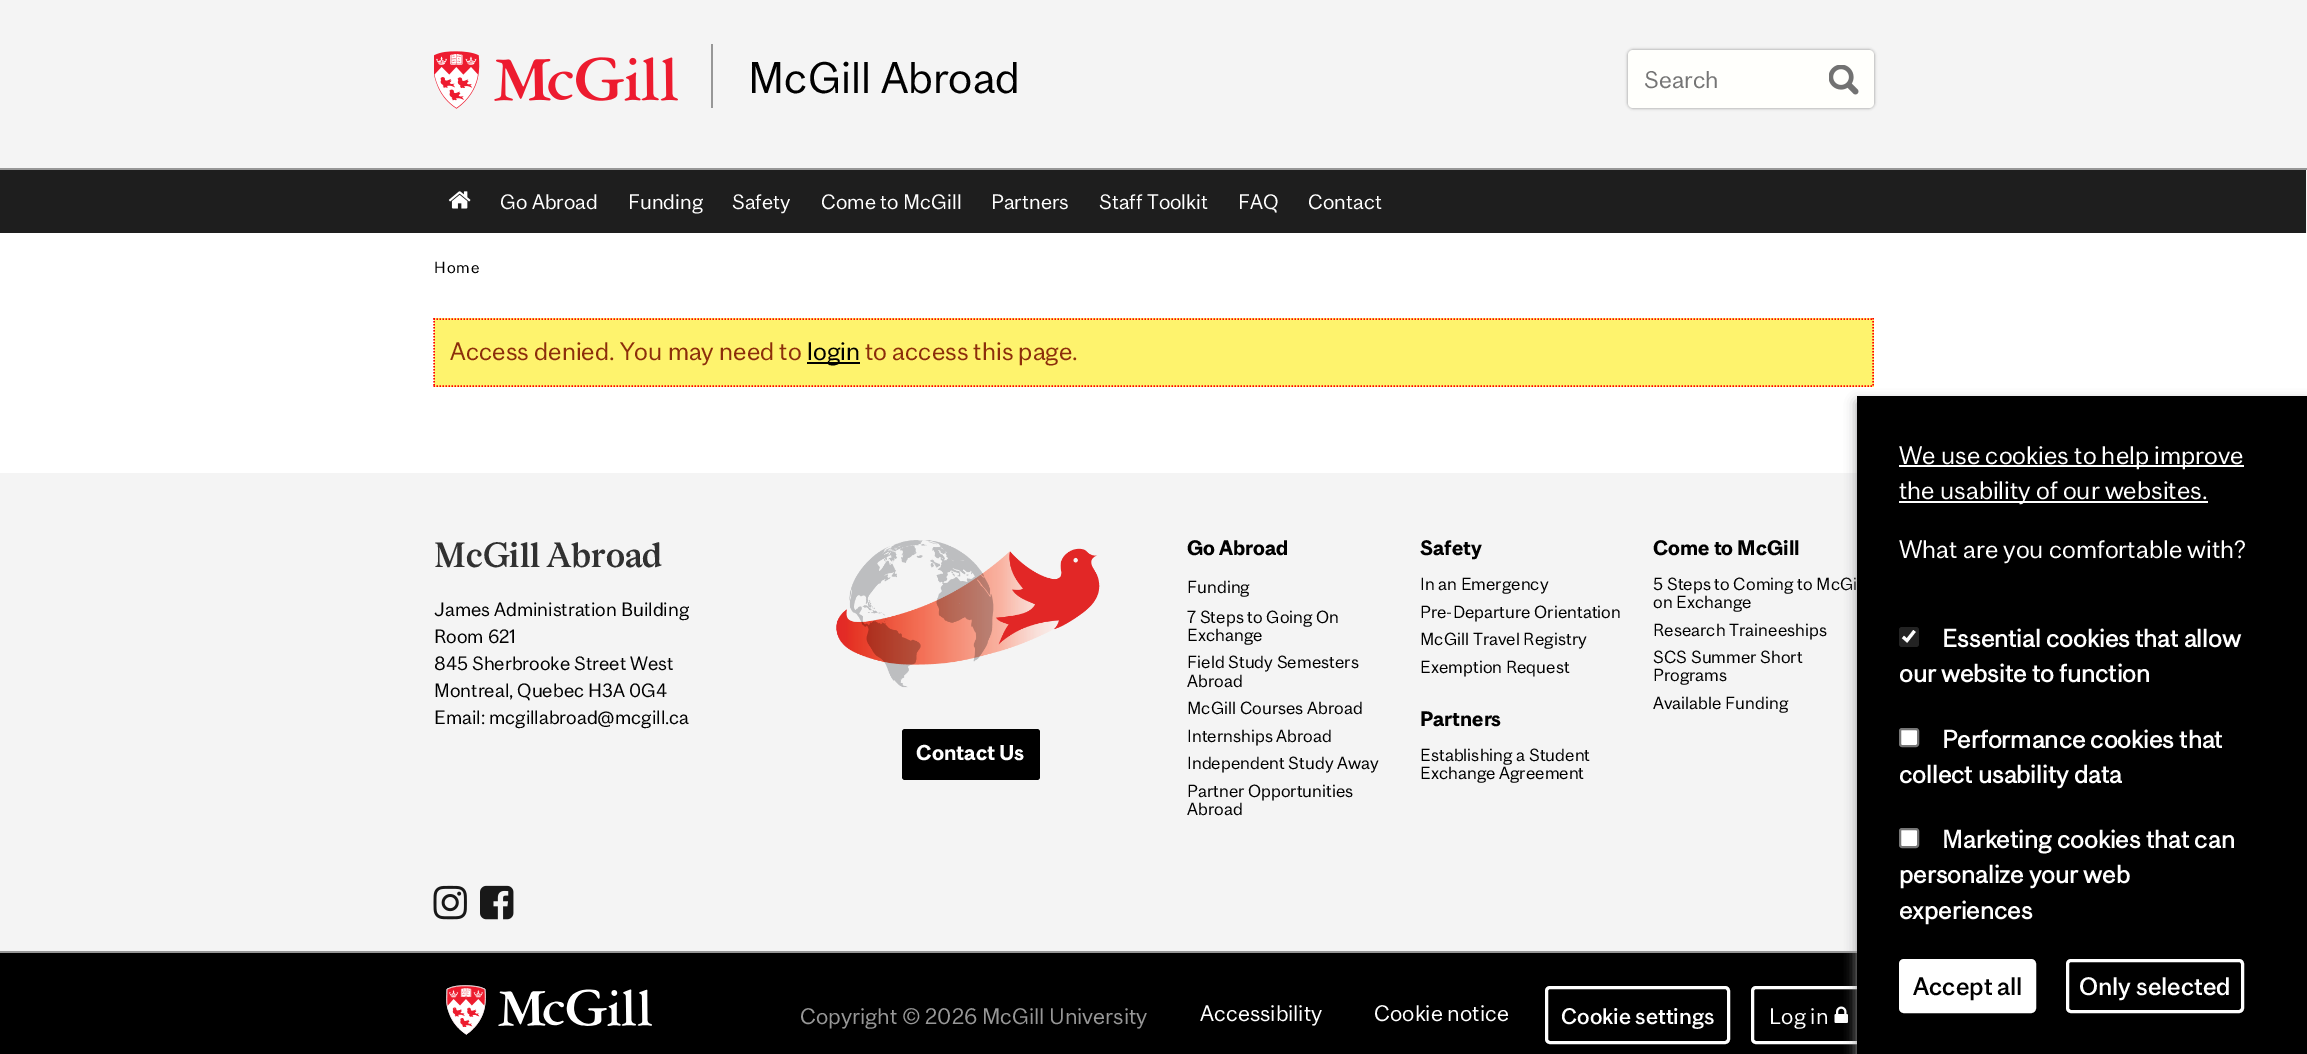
%!PS
<< /PageSize [2307 1054] /PageUsesTransparency true >> setpagedevice
/alpha { dup .setfillconstantalpha .setstrokeconstantalpha } def
/roundrect { 5 dict begin { /r /h /w /y /x } { exch def } forall
  x r add y moveto x w add y 2 copy h add r arct x w add y h add x 1 index r arct
  x y h add x y r arct x y 2 copy exch w add exch r arct closepath end } def
/shadow { 12 dict begin { /a /b /q /h /w /y /x } { exch def } forall gsave /was 0 def
  9 -2 -9 { dup b mul 4 div /e exch def 1 sub .425 mul 2.718 exch exp 1 add a .99 .min exch div /now exch def
    1 1 now sub 1 was sub div sub alpha /was now def
    w h .min e 2 mul add 0 gt { x e sub y e sub w e 2 mul add h e 2 mul add
      q e add b .6 mul add w h .min 2 div e add .min 0 .max roundrect fill } if } for grestore end } def
/picture { 5 dict begin { /h /w /y /x /name } { exch def } forall
  gsave x y translate w h scale
  w h 8 [w 0 0 h 0 0] name (r) file false 3 colorimage grestore end } def
0 .pushpdf14devicefilter
0 1054 translate 1 -1 scale
4 setmiterlimit
1 setgray
0 0 2307 1054 rectfill
0.957 setgray
0 0 2307 168 rectfill
0.592 setgray
0 168 2307 2 rectfill
(img1.rgb) 434 51 244 58 picture
711 44 2 64 rectfill
/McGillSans-Regular [41.25 0 0 -41.25 0 0] selectfont
0 setgray
748 93 moveto (McGill Abroad) show
1628 50 246 58 5 1.5 0.4 shadow
1 1 0.988 setrgbcolor
1628 50 246 58 5 roundrect fill
/McGillSans-Regular [22.5 0 0 -22.5 0 0] selectfont
0.459 setgray
1644 88 moveto (Search) show
(img2.rgb) 1829 65 30 30 picture
0.118 setgray
0 170 2306 63 rectfill
0.957 setgray
2306 170 1 63 rectfill
(img3.rgb) 448 191 23 18 picture
/McGillSans-Regular [19.5 0 0 -19.5 0 0] selectfont
1 setgray
500 209 moveto (Go Abroad) show
628 209 moveto (Funding) show
732 209 moveto (Safety) show
821 209 moveto (Come to McGill) show
991 209 moveto (Partners) show
1099 209 moveto (Staff Toolkit) show
1238 209 moveto (FAQ) show
1308 209 moveto (Contact) show
/McGillSans-Regular [15 0 0 -15 0 0] selectfont
0 setgray
434 273 moveto 1 0 (Home) ashow
0.996 0.953 0.427 setrgbcolor
434 318 1440 69 rectfill
1 0 0 setrgbcolor
1.5 setlinewidth
[1.5 1.5] 0 setdash
newpath 433.5 319 moveto 1873.5 319 lineto stroke
newpath 1873 318 moveto 1873 387 lineto stroke
newpath 433.5 386 moveto 1873.5 386 lineto stroke
newpath 434 318 moveto 434 387 lineto stroke
/McGillSans-Regular [23.5 0 0 -23.5 0 0] selectfont
0.549 0.18 0.043 setrgbcolor
450 360 moveto (Access denied. You may need to) show
0 setgray
807 362 53 2 rectfill
807 360 moveto (login) show
0.549 0.18 0.043 setrgbcolor
865 360 moveto (to access this page.) show
0.957 setgray
0 473 1857 478 rectfill
/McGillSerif-Medium [32.75 0 0 -32.75 0 0] selectfont
0.192 setgray
434 567 moveto (McGill Abroad) show
/McGillSans-Regular [18 0 0 -18 0 0] selectfont
0 setgray
434 616 moveto (James Administration Building) show
434 643 moveto (Room 621) show
434 670 moveto (845 Sherbrooke Street West) show
434 697 moveto (Montreal, Quebec H3A 0G4) show
434 724 moveto (Email: mcgillabroad@mcgill.ca) show
/McGillSans-Bold [19.5 0 0 -19.5 0 0] selectfont
1187 555 moveto (Go Abroad) show
/McGillSans-Regular [16.4 0 0 -16.4 0 0] selectfont
1187 593 moveto (Funding) show
1187 623 moveto (7 Steps to Going On) show
1187 641 moveto (Exchange) show
1187 668 moveto (Field Study Semesters) show
1187 687 moveto (Abroad) show
1187 714 moveto (McGill Courses Abroad) show
1187 742 moveto (Internships Abroad) show
1187 769 moveto (Independent Study Away) show
1187 797 moveto (Partner Opportunities) show
1187 815 moveto (Abroad) show
/McGillSans-Bold [19.5 0 0 -19.5 0 0] selectfont
1420 555 moveto (Safety) show
/McGillSans-Regular [16.4 0 0 -16.4 0 0] selectfont
1420 590 moveto (In an Emergency) show
1420 618 moveto (Pre-Departure Orientation) show
1420 645 moveto (McGill Travel Registry) show
1420 673 moveto (Exemption Request) show
/McGillSans-Bold [19.5 0 0 -19.5 0 0] selectfont
1420 726 moveto (Partners) show
/McGillSans-Regular [16.4 0 0 -16.4 0 0] selectfont
1420 761 moveto (Establishing a Student) show
1420 779 moveto (Exchange Agreement) show
/McGillSans-Bold [19.5 0 0 -19.5 0 0] selectfont
1653 555 moveto (Come to McGill) show
/McGillSans-Regular [16.4 0 0 -16.4 0 0] selectfont
1653 590 moveto (5 Steps to Coming to McGi) show
1653 608 moveto (on Exchange) show
1653 636 moveto (Research Traineeships) show
1653 663 moveto (SCS Summer Short) show
1653 681 moveto (Programs) show
1653 709 moveto (Available Funding) show
(img4.rgb) 836 540 264 148 picture
902 729 138 51 3 roundrect fill
/McGillSans-Bold [20 0 0 -20 0 0] selectfont
1 setgray
916 760 moveto (Contact Us) show
(img5.rgb) 433 885 34 35 picture
(img6.rgb) 480 885 34 35 picture
0 setgray
0 953 1857 101 rectfill
0.592 setgray
0 951 1857 2 rectfill
1 setgray
3 setlinewidth
[] 0 setdash
1752.5 987.5 120 55 3.5 roundrect stroke
(img8.rgb) 1834 1006 14 17 picture
0.592 0.592 0.6 setrgbcolor
1857 402 450 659 0 6 1 shadow
0 setgray
1857 396 450 658 rectfill
1 setgray
1899 465 345 2 rectfill
/McGillSans-Regular [23.5 0 0 -23.5 0 0] selectfont
1899 464 moveto (We use cookies to help improve) show
1899 501 309 2 rectfill
1899 499 moveto (the usability of our websites.) show
1899 558 moveto (What are you comfortable with?) show
0.137 setgray
1899 627 20 20 3 roundrect fill
1 setgray
3.1 setlinewidth
newpath 1903 637 moveto 1907 640.5 lineto 1914.5 631 lineto stroke
/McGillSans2-Bold [23.5 0 0 -23.5 0 0] selectfont
1942 647 moveto (Essential cookies that allow) show
1899 682 moveto (our website to function) show
1900 729 18 17 2 roundrect gsave fill grestore
0.463 setgray
2 setlinewidth
stroke
1 setgray
1942 748 moveto (Performance cookies that) show
1899 783 moveto (collect usability data) show
1900 829 18 18 2 roundrect gsave fill grestore
0.463 setgray
stroke
1 setgray
1942 848 moveto (Marketing cookies that can) show
1899 883 moveto (personalize your web) show
1899 919 moveto (experiences) show
1900.5 960.5 134 51 3.5 roundrect gsave fill grestore
3 setlinewidth
stroke
/McGillSans-Medium [23.5 0 0 -23.5 0 0] selectfont
0 setgray
1913 995 moveto (Accept all) show
1 setgray
2067.5 960.5 175 51 3.5 roundrect stroke
2079 995 moveto (Only selected) show
(img7.rgb) 446 985 206 50 picture
/McGillSans-Regular [21 0 0 -21 0 0] selectfont
0.592 setgray
800 1024 moveto (Copyright © 2026 McGill University) show
1 setgray
1200 1021 moveto (Accessibility) show
1374 1021 moveto (Cookie notice) show
1546.5 987.5 182 55 3.5 roundrect stroke
/McGillSans-Medium [21 0 0 -21 0 0] selectfont
1561 1024 moveto (Cookie settings) show
/McGillSans-Regular [21 0 0 -21 0 0] selectfont
1769 1024 moveto (Log in) show
.poppdf14devicefilter showpage
